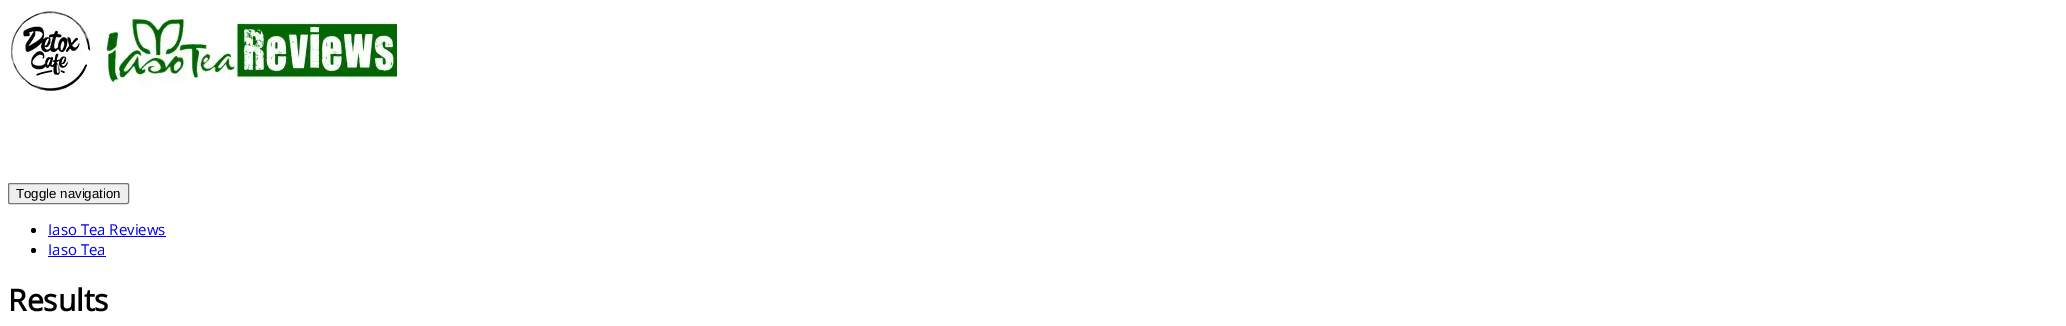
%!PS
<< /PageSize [2066 326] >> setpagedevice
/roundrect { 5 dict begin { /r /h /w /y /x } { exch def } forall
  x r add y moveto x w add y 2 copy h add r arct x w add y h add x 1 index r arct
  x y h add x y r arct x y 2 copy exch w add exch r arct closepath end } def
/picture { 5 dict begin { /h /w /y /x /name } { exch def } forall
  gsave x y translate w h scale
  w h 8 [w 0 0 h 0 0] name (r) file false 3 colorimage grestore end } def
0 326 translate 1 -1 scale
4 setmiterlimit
1 setgray
0 0 2066 326 rectfill
(img1.rgb) 8 8 389 84 picture
0.937 setgray
8.5 183.5 120 20 1.5 roundrect gsave fill grestore
0.463 setgray
stroke
/LiberationSans-Regular [13.25 0 0 -13.25 0 0] selectfont
0 setgray
16 198 moveto (Toggle navigation) show
newpath 33.5 230.5 2.5 0 360 arc closepath fill
/OpenSans-Regular [15 0 0 -15 0 0] selectfont
0 0 0.933 setrgbcolor
48 235 moveto (Iaso Tea Reviews) show
48 236 118 1 rectfill
0 setgray
newpath 33.5 250.5 2.5 0 360 arc closepath fill
0 0 0.933 setrgbcolor
48 255 moveto (Iaso Tea) show
48 256 58 1 rectfill
/OpenSans-Bold [30 0 0 -30 0 0] selectfont
0 setgray
8 311 moveto (Results) show
showpage
